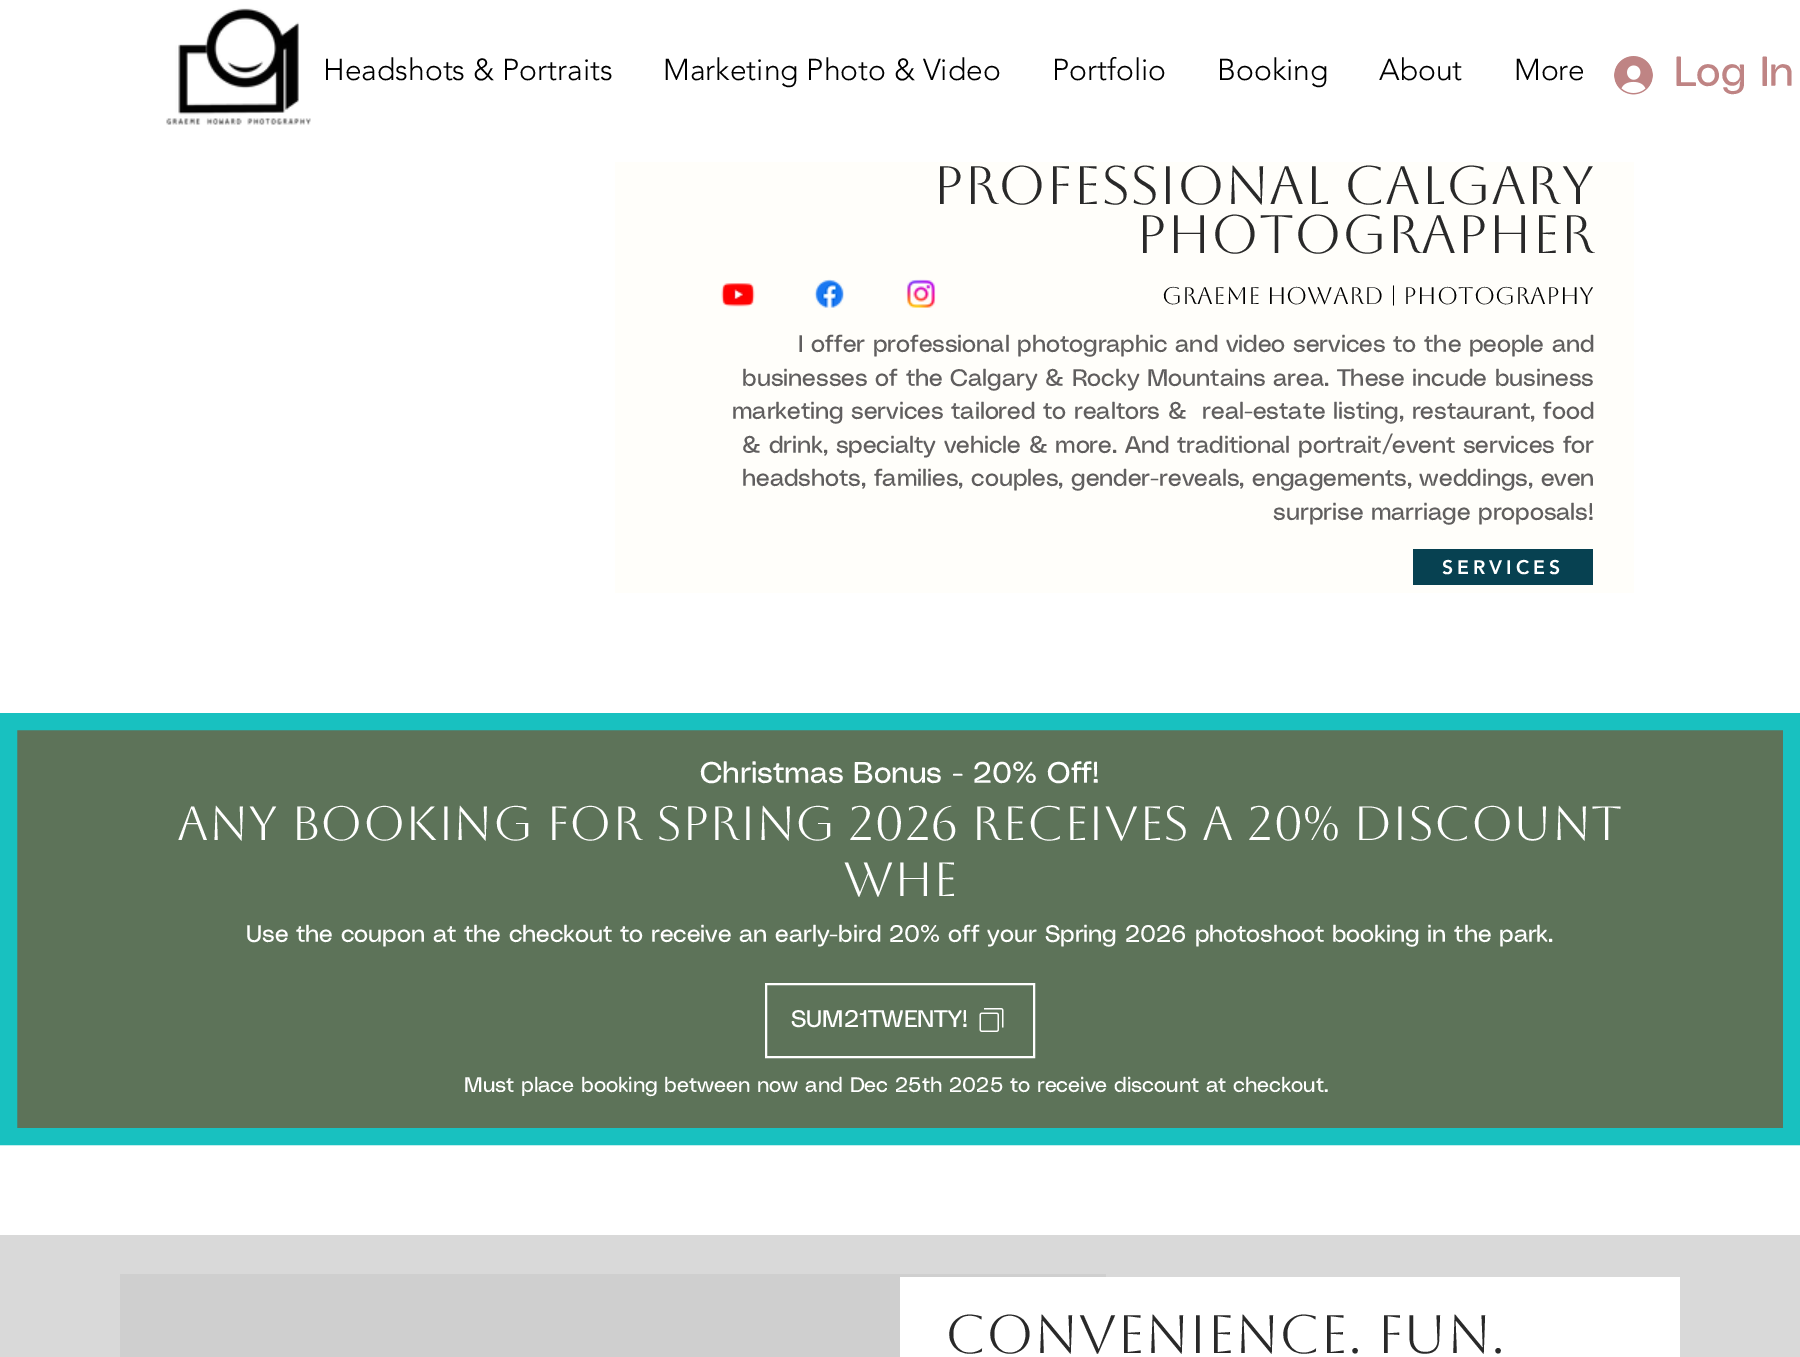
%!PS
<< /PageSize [1800 1357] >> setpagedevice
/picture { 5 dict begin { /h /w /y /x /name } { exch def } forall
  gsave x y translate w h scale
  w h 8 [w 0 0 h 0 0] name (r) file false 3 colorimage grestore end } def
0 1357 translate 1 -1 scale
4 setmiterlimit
1 setgray
0 0 1800 1357 rectfill
(img1.rgb) 166 8 145 117 picture
/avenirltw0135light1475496-Light [30 0 0 -30 0 0] selectfont
0 setgray
323 80 moveto (Headshots & Portraits) show
663 80 moveto (Marketing Photo & Video) show
1052 80 moveto (Portfolio) show
1217 80 moveto (Booking) show
1379 80 moveto (About) show
1514 80 moveto (More) show
(img2.rgb) 1614 56 39 39 picture
/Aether-Regular [42 0 0 -42 0 0] selectfont
0.749 0.518 0.518 setrgbcolor
1674 86 moveto (Log In) show
1 0.996 0.98 setrgbcolor
615 162 1019 431 rectfill
/Aboreto-Regular [54 0 0 -54 0 0] selectfont
0.161 setgray
933 204 moveto (Professional Calgary) show
1136 253 moveto (Photographer) show
(img3.rgb) 721 283 34 24 picture
(img4.rgb) 814 279 30 29 picture
(img5.rgb) 906 279 30 29 picture
/Aboreto-Regular [24 0 0 -24 0 0] selectfont
0 setgray
1162 304 moveto (Graeme Howard | Photography) show
/Aether-Regular [24 0 0 -24 0 0] selectfont
0.376 0.369 0.369 setrgbcolor
798 352 moveto (I offer professional photographic and video services to the people and) show
742 386 moveto (businesses of the Calgary & Rocky Mountains area. These incude business) show
732 419 moveto (marketing services tailored to realtors &  real-estate listing, restaurant, food) show
742 453 moveto (& drink, specialty vehicle & more. And traditional portrait/event services for) show
742 486 moveto (headshots, families, couples, gender-reveals, engagements, weddings, even) show
1273 520 moveto (surprise marriage proposals!) show
0.027 0.255 0.318 setrgbcolor
1413 549 180 36 rectfill
/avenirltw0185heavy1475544-Black [19.5 0 0 -19.5 0 0] selectfont
1 setgray
1442 574 moveto 4 0 (SERVICES) ashow
0.365 0.451 0.349 setrgbcolor
newpath 8.5 721.5 moveto 1791.5 721.5 lineto 1791.5 1136.5 lineto 8.5 1136.5 lineto closepath gsave fill grestore
0.094 0.757 0.753 setrgbcolor
17 setlinewidth
stroke
/Aether-Regular [30 0 0 -30 0 0] selectfont
1 setgray
700 783 moveto (Christmas Bonus - 20% Off!) show
/Aboreto-Regular [48 0 0 -48 0 0] selectfont
177 840 moveto (Any booking for Spring 2026 receives a 20% Discount) show
843 896 moveto (whe) show
/Aether-Regular [24 0 0 -24 0 0] selectfont
246 942 moveto (Use the coupon at the checkout to receive an early-bird 20% off your Spring 2026 photoshoot booking in the park.) show
2 setlinewidth
766 984 268 73 rectstroke
791 1027 moveto (SUM21TWENTY!) show
(img6.rgb) 979 1008 25 24 picture
/Aether-Regular [21 0 0 -21 0 0] selectfont
464 1092 moveto (Must place booking between now and Dec 25th 2025 to receive discount at checkout.) show
0.851 setgray
0 1235 1800 122 rectfill
0.812 setgray
120 1274 986 83 rectfill
1 setgray
900 1277 780 80 rectfill
/Aboreto-Regular [54 0 0 -54 0 0] selectfont
0.161 setgray
945 1353 moveto (Convenience. Fun.) show
showpage
